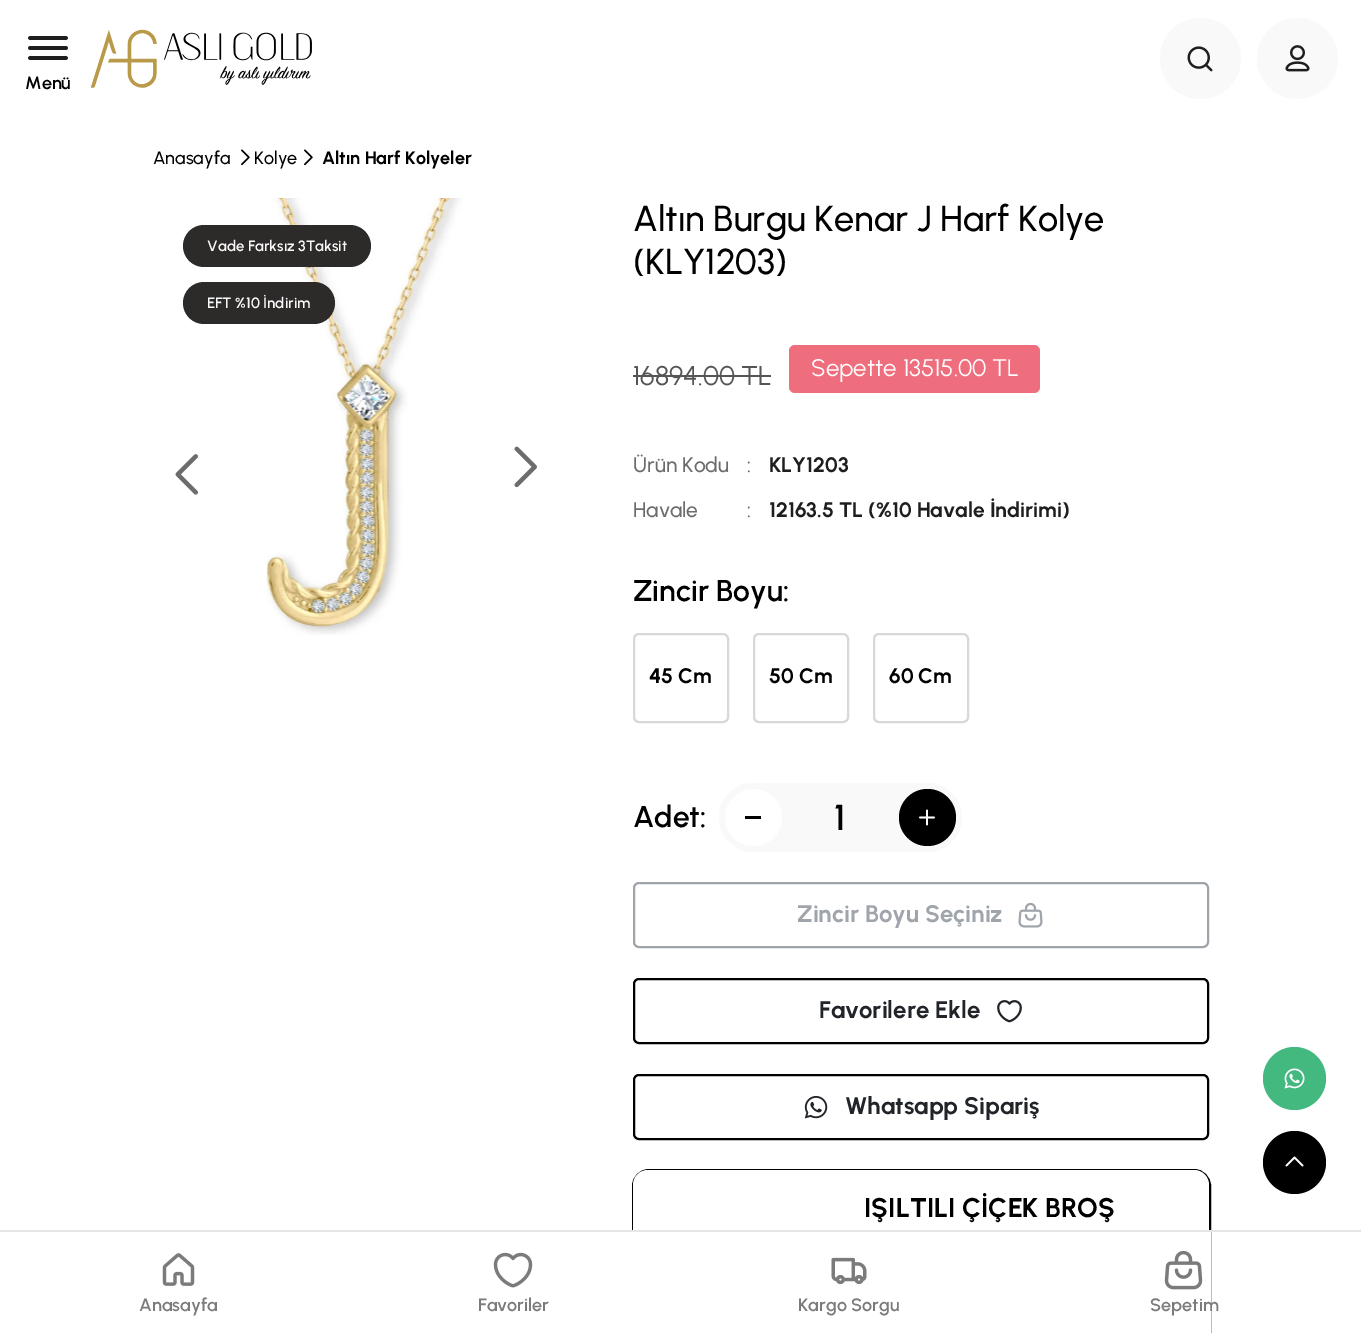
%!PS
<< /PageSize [1361 1333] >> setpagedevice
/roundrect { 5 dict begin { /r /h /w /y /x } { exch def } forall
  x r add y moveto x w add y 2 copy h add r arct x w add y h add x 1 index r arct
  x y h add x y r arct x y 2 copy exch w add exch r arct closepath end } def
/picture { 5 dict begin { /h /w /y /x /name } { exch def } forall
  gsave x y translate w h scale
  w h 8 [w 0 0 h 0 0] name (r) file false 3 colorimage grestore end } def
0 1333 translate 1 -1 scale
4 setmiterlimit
1 setgray
0 0 1361 1333 rectfill
(img1.rgb) 28 36 40 24 picture
/Urbanist-SemiBold [18 0 0 -18 0 0] selectfont
0 setgray
25 89 moveto (Menü) show
(img2.rgb) 90 29 222 59 picture
0.976 setgray
newpath 1200.5 58.5 40.5 0 360 arc closepath fill
(img3.rgb) 1187 46 26 26 picture
newpath 1297.5 58.5 40.5 0 360 arc closepath fill
(img4.rgb) 1285 45 25 27 picture
/Urbanist-Medium [18 0 0 -18 0 0] selectfont
0 setgray
153 164 moveto (Anasayfa) show
(img5.rgb) 241 149 9 17 picture
254 164 moveto (Kolye) show
(img5.rgb) 304 149 9 17 picture
/Urbanist-Bold [18 0 0 -18 0 0] selectfont
322 164 moveto (Altın Harf Kolyeler) show
(img6.rgb) 266 198 197 437 picture
0.176 0.165 0.165 setrgbcolor
183 225 188 42 21 roundrect fill
/Urbanist-SemiBold [15 0 0 -15 0 0] selectfont
0.973 setgray
207 251 moveto (Vade Farksız 3Taksit) show
0.176 0.165 0.165 setrgbcolor
183 282 152 42 21 roundrect fill
0.973 setgray
207 308 moveto (EFT %10 İndirim) show
(img7.rgb) 175 454 23 41 picture
(img8.rgb) 514 446 23 42 picture
/Urbanist-Medium [36 0 0 -36 0 0] selectfont
0 setgray
633 231 moveto (Altın Burgu Kenar J Harf Kolye) show
633 274 moveto (\(KLY1203\)) show
/Urbanist-Regular [27 0 0 -27 0 0] selectfont
0.333 setgray
633 385 moveto (16894.00 TL) show
633 375 138 2 rectfill
0.937 0.431 0.494 setrgbcolor
789 345 251 48 6 roundrect fill
/Urbanist-Regular [24 0 0 -24 0 0] selectfont
1 setgray
811 376 moveto (Sepette 13515.00 TL) show
/Urbanist-Medium [21 0 0 -21 0 0] selectfont
0.424 setgray
633 472 moveto (Ürün Kodu) show
747 472 moveto (:) show
/Urbanist-Bold [21 0 0 -21 0 0] selectfont
0.118 setgray
769 472 moveto (KLY1203) show
/Urbanist-Medium [21 0 0 -21 0 0] selectfont
0.424 setgray
633 517 moveto (Havale) show
747 517 moveto (:) show
/Urbanist-Bold [21 0 0 -21 0 0] selectfont
0.118 setgray
769 517 moveto (12163.5 TL \(%10 Havale İndirimi\)) show
/Urbanist-SemiBold [30 0 0 -30 0 0] selectfont
0 setgray
633 601 moveto (Zincir Boyu:) show
0.847 setgray
2 setlinewidth
634 634 94 88 5 roundrect stroke
/Urbanist-Bold [21 0 0 -21 0 0] selectfont
0 setgray
649 683 moveto (45 Cm) show
0.847 setgray
754 634 94 88 5 roundrect stroke
0 setgray
769 683 moveto (50 Cm) show
0.847 setgray
874 634 94 88 5 roundrect stroke
0 setgray
889 683 moveto (60 Cm) show
/Urbanist-SemiBold [30 0 0 -30 0 0] selectfont
633 827 moveto (Adet:) show
0.976 setgray
719 783 243 69 34.5 roundrect fill
1 setgray
newpath 753.5 817.5 28.5 0 360 arc closepath fill
0 setgray
745 816 16 3 rectfill
/Urbanist-SemiBold [36 0 0 -36 0 0] selectfont
834 830 moveto (1) show
newpath 927.5 817.5 28.5 0 360 arc closepath fill
(img9.rgb) 919 809 16 17 picture
0.624 0.647 0.671 setrgbcolor
634 883 574 64 5 roundrect stroke
/Urbanist-Bold [24 0 0 -24 0 0] selectfont
797 922 moveto (Zincir Boyu Seçiniz) show
(img10.rgb) 1018 902 25 26 picture
0 setgray
634 979 574 64 5 roundrect stroke
0.129 0.145 0.161 setrgbcolor
819 1018 moveto (Favorilere Ekle) show
(img11.rgb) 997 1000 25 23 picture
0 setgray
634 1075 574 64 5 roundrect stroke
(img12.rgb) 804 1095 24 24 picture
0.129 0.145 0.161 setrgbcolor
845 1114 moveto (Whatsapp Sipariş) show
0 setgray
633 1170 577 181 16 roundrect stroke
1 setgray
633 1170 576 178 15 roundrect fill
/Urbanist-Bold [27 0 0 -27 0 0] selectfont
0 setgray
864 1217 moveto (IŞILTILI ÇİÇEK BROŞ) show
0.263 0.725 0.498 setrgbcolor
newpath 1294.5 1078.5 31.5 0 360 arc closepath fill
(img13.rgb) 1284 1068 21 21 picture
0 setgray
newpath 1294.5 1162.5 31.5 0 360 arc closepath fill
(img14.rgb) 1285 1156 19 11 picture
1 setgray
632 1232 579 101 rectfill
0.898 setgray
0 1230 1361 2 rectfill
(img15.rgb) 162 1253 33 33 picture
/Urbanist-SemiBold [18 0 0 -18 0 0] selectfont
0.482 setgray
139 1311 moveto (Anasayfa) show
(img16.rgb) 493 1252 40 36 picture
478 1311 moveto (Favoriler) show
(img17.rgb) 831 1257 36 28 picture
798 1311 moveto (Kargo Sorgu) show
(img18.rgb) 1164 1250 39 40 picture
1150 1311 moveto (Sepetim) show
showpage
